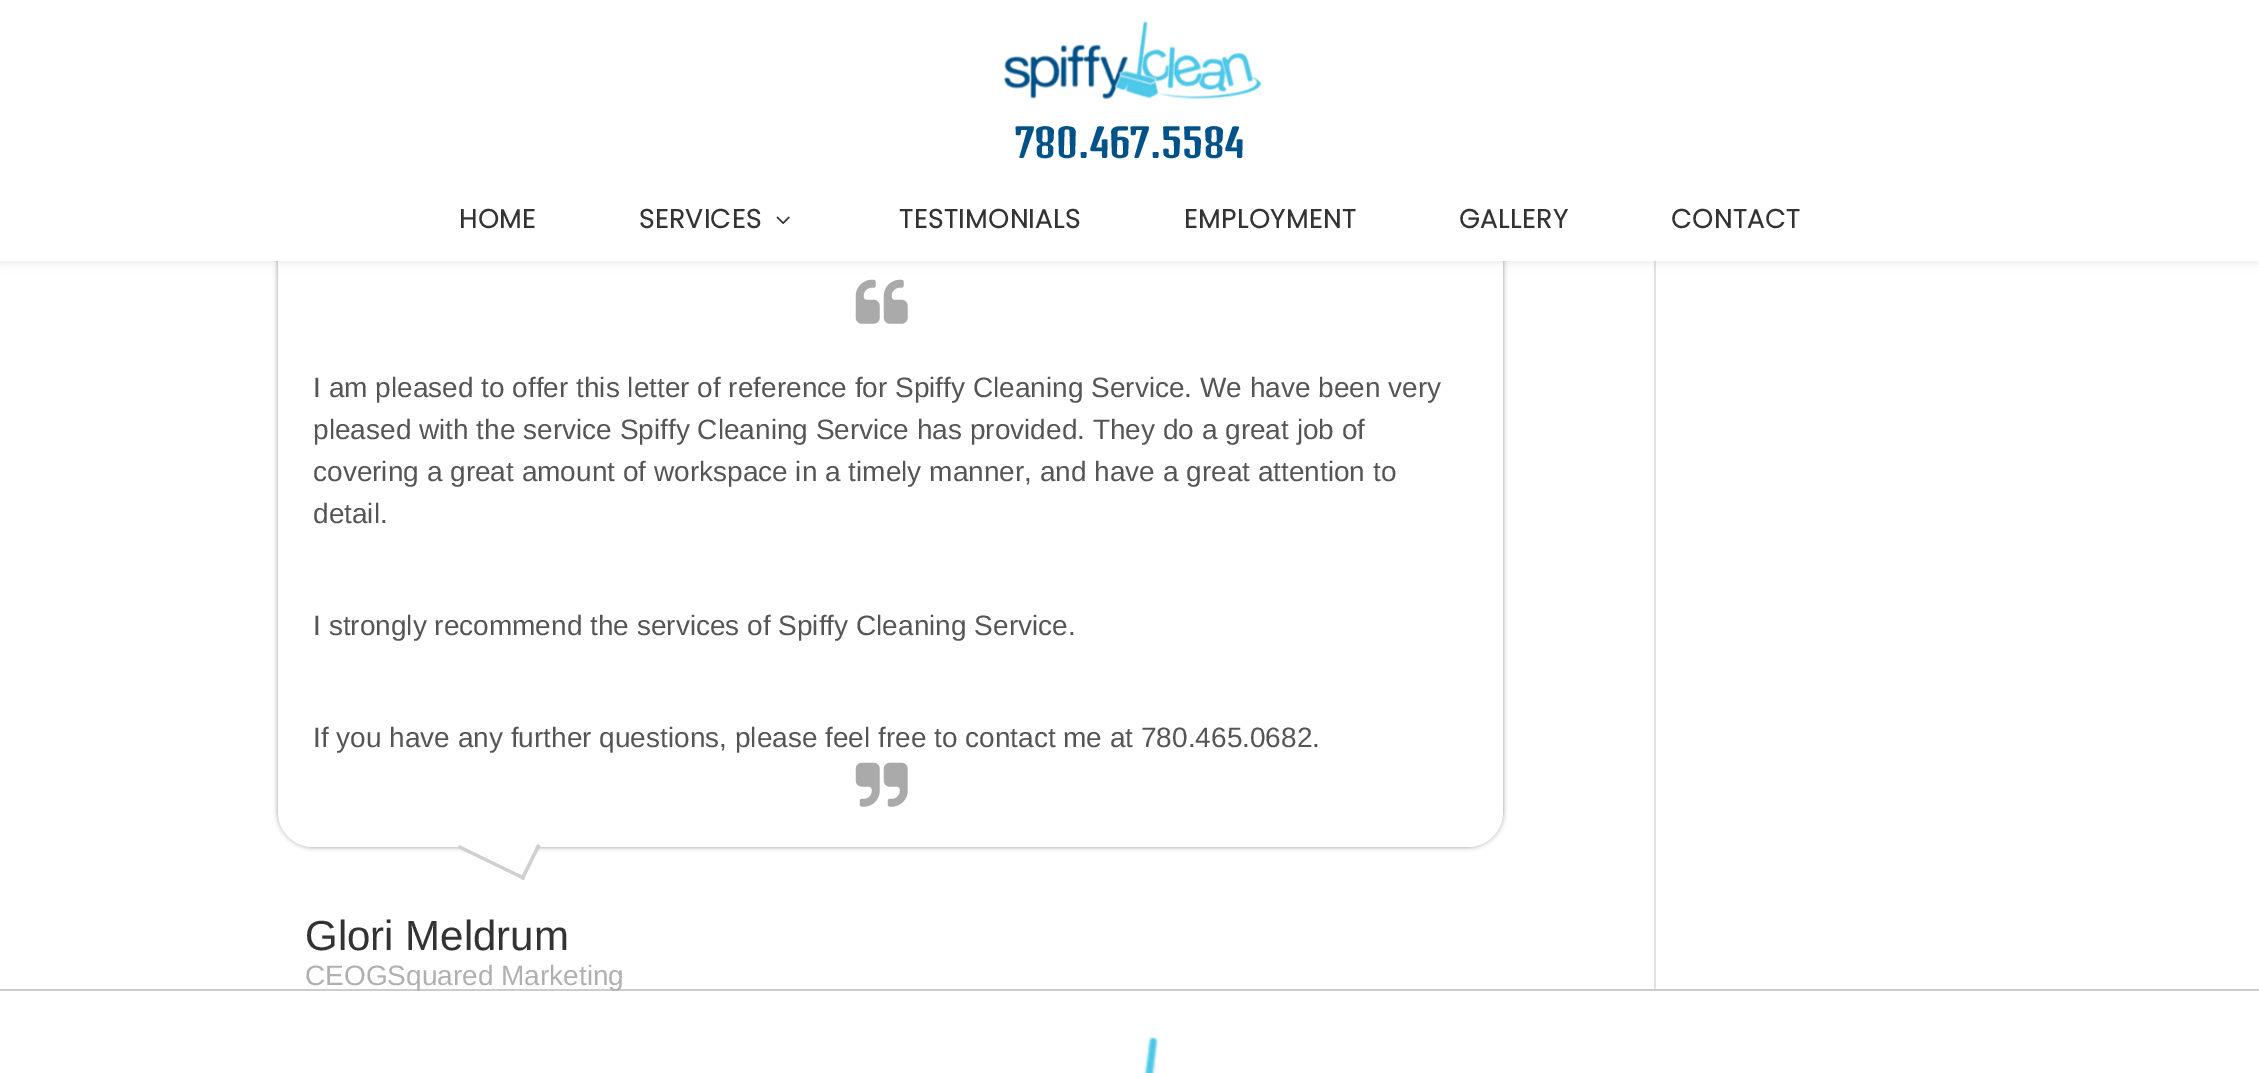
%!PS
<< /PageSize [2259 1073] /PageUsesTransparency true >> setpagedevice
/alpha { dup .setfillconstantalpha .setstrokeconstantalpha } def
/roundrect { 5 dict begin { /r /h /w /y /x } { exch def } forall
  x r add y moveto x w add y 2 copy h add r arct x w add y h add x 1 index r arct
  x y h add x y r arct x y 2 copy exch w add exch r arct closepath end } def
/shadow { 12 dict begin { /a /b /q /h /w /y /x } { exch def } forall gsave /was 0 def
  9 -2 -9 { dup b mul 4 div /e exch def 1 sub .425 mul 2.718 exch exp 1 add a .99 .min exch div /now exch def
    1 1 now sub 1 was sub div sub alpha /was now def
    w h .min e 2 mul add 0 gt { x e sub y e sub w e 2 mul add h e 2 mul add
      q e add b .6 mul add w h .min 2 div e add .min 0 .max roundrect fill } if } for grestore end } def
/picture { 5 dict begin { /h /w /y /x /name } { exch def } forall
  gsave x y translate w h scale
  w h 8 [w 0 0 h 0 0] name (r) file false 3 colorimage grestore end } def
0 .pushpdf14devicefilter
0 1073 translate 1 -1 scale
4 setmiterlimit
1 setgray
0 0 2259 1073 rectfill
0.6 setgray
278 128 1225 719 35 2.5 1 shadow
1 setgray
278 128 1225 719 35 roundrect fill
(img3.rgb) 855 279 53 45 picture
0.886 setgray
1654 261 2 728 rectfill
0 setgray
0 0 2259 261 0 6 0.1 shadow
1 setgray
0 0 2259 261 rectfill
(img1.rgb) 1003 21 259 79 picture
/DenkOne-Regular [38.5 0 0 -38.5 0 0] selectfont
0.004 0.322 0.537 setrgbcolor
1015 158 moveto (780.467.5584) show
/Poppins-Bold [26.25 0 0 -26.25 0 0] selectfont
0.2 setgray
459 228 moveto 0.9 0 (HOME) ashow
639 228 moveto 0.9 0 (SERVICES) ashow
(img2.rgb) 776 216 14 8 picture
899 228 moveto 0.9 0 (TESTIMONIALS) ashow
1184 228 moveto 0.9 0 (EMPLOYMENT) ashow
1459 228 moveto 0.9 0 (GALLERY) ashow
1671 228 moveto 0.9 0 (CONTACT) ashow
/LiberationSans-Regular [28 0 0 -28 0 0] selectfont
0.333 setgray
313 397 moveto (I am pleased to offer this letter of reference for Spiffy Cleaning Service. We have been very) show
313 439 moveto (pleased with the service Spiffy Cleaning Service has provided. They do a great job of) show
313 481 moveto (covering a great amount of workspace in a timely manner, and have a great attention to) show
313 523 moveto (detail.) show
313 635 moveto (I strongly recommend the services of Spiffy Cleaning Service.) show
313 747 moveto (If you have any further questions, please feel free to contact me at 780.465.0682.) show
(img4.rgb) 855 762 53 45 picture
1 setgray
newpath 474 813 moveto 537 844 lineto 522 875 lineto 459 845 lineto closepath fill
0.816 setgray
newpath 537.5 844 moveto 540.5 845.5 lineto 523.5 880 lineto 520.5 878.5 lineto closepath fill
newpath 459 845 moveto 525 877 lineto 524 880 lineto 458 848 lineto closepath fill
/LiberationSans-Regular [42 0 0 -42 0 0] selectfont
0.2 setgray
305 950 moveto (Glori Meldrum) show
0.8 setgray
0 989 2259 2 rectfill
/LiberationSans-Regular [28 0 0 -28 0 0] selectfont
0.69 setgray
305 985 moveto (CEOGSquared Marketing) show
(img5.rgb) 1144 1037 15 36 picture
.poppdf14devicefilter showpage
